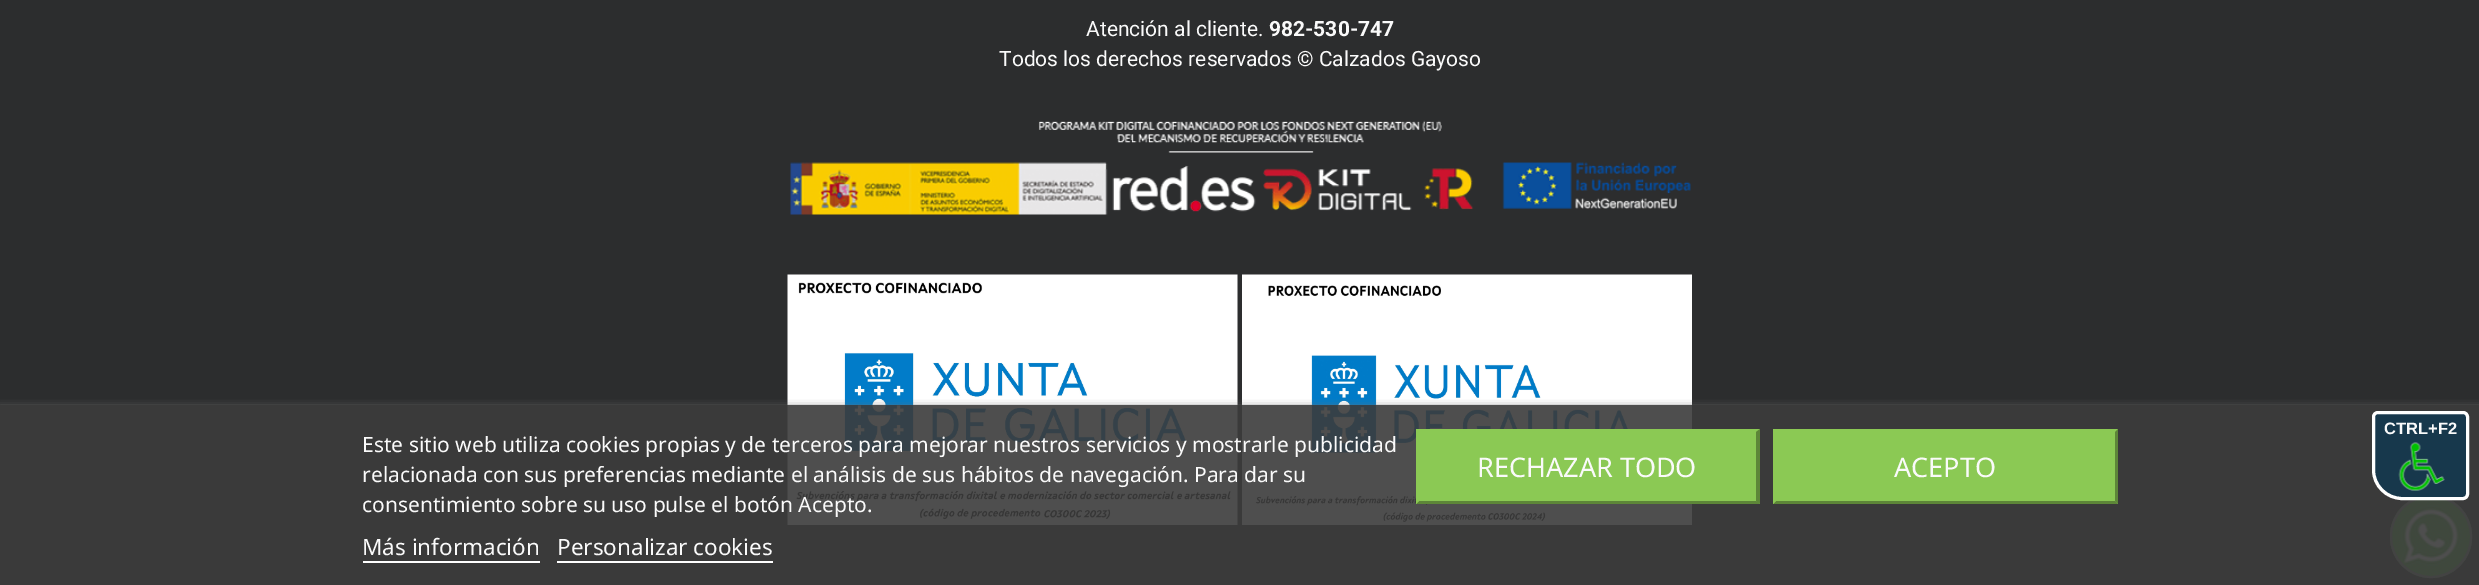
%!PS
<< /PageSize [2479 585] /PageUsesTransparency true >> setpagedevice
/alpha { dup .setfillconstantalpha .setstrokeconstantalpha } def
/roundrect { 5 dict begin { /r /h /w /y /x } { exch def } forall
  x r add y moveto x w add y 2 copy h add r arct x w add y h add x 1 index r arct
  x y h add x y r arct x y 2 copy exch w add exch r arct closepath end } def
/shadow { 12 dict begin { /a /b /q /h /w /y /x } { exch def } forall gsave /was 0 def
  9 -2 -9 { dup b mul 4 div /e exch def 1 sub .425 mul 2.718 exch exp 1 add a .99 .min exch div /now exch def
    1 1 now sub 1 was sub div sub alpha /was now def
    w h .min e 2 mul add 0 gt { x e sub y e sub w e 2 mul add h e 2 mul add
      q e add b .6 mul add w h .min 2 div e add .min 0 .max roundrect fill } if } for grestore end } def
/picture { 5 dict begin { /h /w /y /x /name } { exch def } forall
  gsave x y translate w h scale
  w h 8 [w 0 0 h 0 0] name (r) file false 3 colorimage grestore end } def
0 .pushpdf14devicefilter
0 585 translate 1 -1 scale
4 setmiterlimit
0.173 0.176 0.18 setrgbcolor
0 0 2479 585 rectfill
/Roboto-Regular [21 0 0 -21 0 0] selectfont
0.98 setgray
1086 36 moveto (Atención al cliente.) show
/Roboto-Bold [21 0 0 -21 0 0] selectfont
1269 36 moveto (982-530-747) show
/Roboto-Regular [21 0 0 -21 0 0] selectfont
999 66 moveto (Todos los derechos reservados © Calzados Gayoso) show
0.396 0.737 0.329 setrgbcolor
2390 495 82 83 41 roundrect fill
(img1.rgb) 2396 502 69 68 picture
0.533 setgray
2 setlinewidth
2391 496 80 81 40 roundrect stroke
(img3.rgb) 787 274 451 251 picture
(img4.rgb) 1242 274 450 251 picture
gsave
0 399 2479 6 rectclip
0.439 setgray
0 407 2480 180 0 4 1 shadow
grestore
0.9 alpha
0.231 setgray
0 405 2479 180 rectfill
/NotoSans-Regular [21 0 0 -21 0 0] selectfont
1 alpha
0.98 setgray
362 452 moveto (Este sitio web utiliza cookies propias y de terceros para mejorar nuestros servicios y mostrarle publicidad) show
362 482 moveto (relacionada con sus preferencias mediante el análisis de sus hábitos de navegación. Para dar su) show
362 512 moveto (consentimiento sobre su uso pulse el botón Acepto.) show
/NotoSans-Regular [22.5 0 0 -22.5 0 0] selectfont
362 555 moveto (Más información) show
1 setgray
363 561 177 2 rectfill
0.98 setgray
557 555 moveto (Personalizar cookies) show
1 setgray
557 561 216 2 rectfill
0.545 0.788 0.329 setrgbcolor
1416 429 344 75 rectfill
0.365 0.525 0.22 setrgbcolor
newpath 1760 429 moveto 1760 504 lineto 1756 501 lineto 1756 432 lineto closepath fill
newpath 1760 504 moveto 1416 504 lineto 1419 501 lineto 1756 501 lineto closepath fill
0.545 0.788 0.329 setrgbcolor
newpath 1416 504 moveto 1416 429 lineto 1419 432 lineto 1419 501 lineto closepath fill
/NotoSans-Regular [27 0 0 -27 0 0] selectfont
0.98 setgray
1477 477 moveto (RECHAZAR TODO) show
0.545 0.788 0.329 setrgbcolor
1773 429 345 75 rectfill
0.365 0.525 0.22 setrgbcolor
newpath 2118 429 moveto 2118 504 lineto 2115 501 lineto 2115 432 lineto closepath fill
newpath 2118 504 moveto 1773 504 lineto 1776 501 lineto 2115 501 lineto closepath fill
0.545 0.788 0.329 setrgbcolor
newpath 1773 504 moveto 1773 429 lineto 1776 432 lineto 1776 501 lineto closepath fill
0.98 setgray
1894 477 moveto (ACEPTO) show
(img2.rgb) 790 120 901 95 picture
0.09 0.22 0.298 setrgbcolor
newpath 2378 412.5 moveto 2463 412.5 lineto 2465.5 412.5 2467.5 414.5 2467.5 417 curveto 2467.5 494 lineto 2467.5 496.5 2465.5 498.5 2463 498.5 curveto 2402 498.5 lineto 2386.5 498.5 2373.5 485.5 2373.5 470 curveto 2373.5 417 lineto 2373.5 414.5 2375.5 412.5 2378 412.5 curveto closepath gsave fill grestore
1 setgray
3 setlinewidth
stroke
/LiberationSans-Bold [16.5 0 0 -16.5 0 0] selectfont
0.98 setgray
2384 434 moveto (CTRL+F2) show
(img5.rgb) 2398 442 47 49 picture
.poppdf14devicefilter showpage
